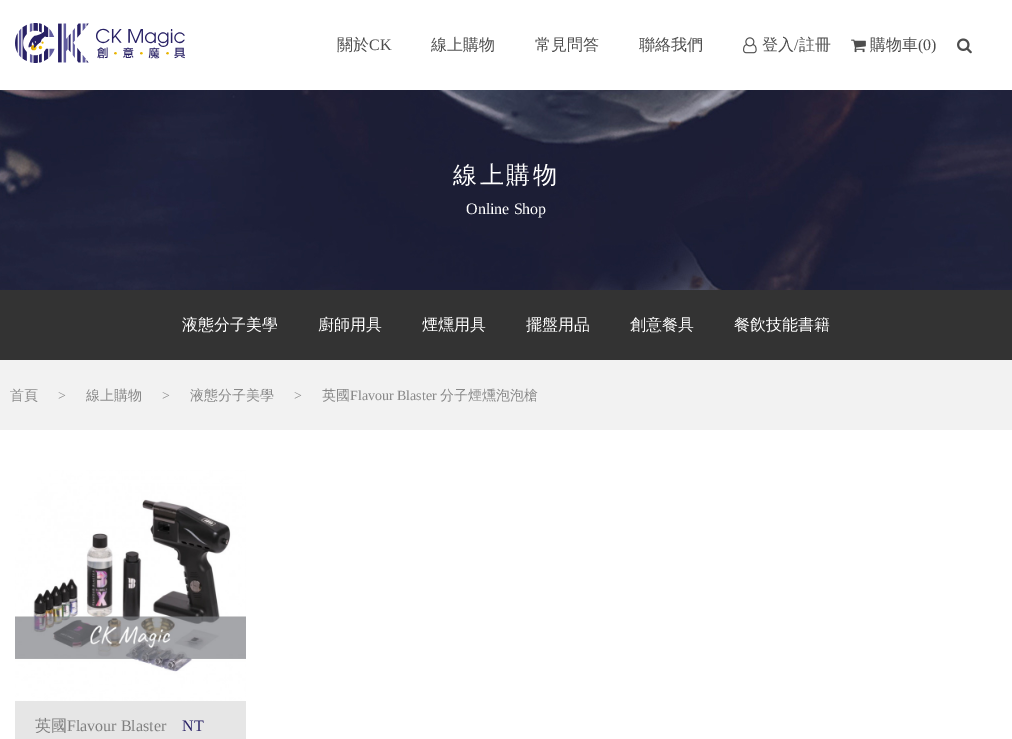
%!PS
<< /PageSize [1012 739] >> setpagedevice
/picture { 5 dict begin { /h /w /y /x /name } { exch def } forall
  gsave x y translate w h scale
  w h 8 [w 0 0 h 0 0] name (r) file false 3 colorimage grestore end } def
0 739 translate 1 -1 scale
4 setmiterlimit
1 setgray
0 0 1012 739 rectfill
(img1.rgb) 15 23 170 40 picture
/WenQuanYiZenHei-Medium [16 0 0 -16 0 0] selectfont
0.302 setgray
337 50 moveto (關於) show
/LiberationSerif-Regular [16 0 0 -16 0 0] selectfont
369 50 moveto (CK) show
/WenQuanYiZenHei-Medium [16 0 0 -16 0 0] selectfont
431 50 moveto (線上購物) show
535 50 moveto (常見問答) show
639 50 moveto (聯絡我們) show
(img2.rgb) 743 37 14 17 picture
762 50 moveto (登入) show
/LiberationSerif-Regular [16 0 0 -16 0 0] selectfont
794 50 moveto (/) show
/WenQuanYiZenHei-Medium [16 0 0 -16 0 0] selectfont
799 50 moveto (註冊) show
(img3.rgb) 851 39 15 14 picture
870 50 moveto (購物車) show
/LiberationSerif-Regular [16 0 0 -16 0 0] selectfont
918 50 moveto (\(0\)) show
(img4.rgb) 957 38 15 16 picture
(img5.rgb) 0 90 1012 200 picture
/WenQuanYiZenHei-Medium [24 0 0 -24 0 0] selectfont
1 setgray
453 183 moveto 2.5 0 (線上購物) ashow
/LiberationSerif-Regular [16 0 0 -16 0 0] selectfont
466 214 moveto (Online Shop) show
0.2 setgray
0 290 1012 70 rectfill
/WenQuanYiZenHei-Medium [16 0 0 -16 0 0] selectfont
1 setgray
182 330 moveto (液態分子美學) show
318 330 moveto (廚師用具) show
422 330 moveto (煙燻用具) show
526 330 moveto (擺盤用品) show
630 330 moveto (創意餐具) show
734 330 moveto (餐飲技能書籍) show
0.949 setgray
0 360 1012 70 rectfill
/WenQuanYiZenHei-Medium [14 0 0 -14 0 0] selectfont
0.537 setgray
10 400 moveto (首頁) show
/LiberationSerif-Regular [14 0 0 -14 0 0] selectfont
58 400 moveto (>) show
/WenQuanYiZenHei-Medium [14 0 0 -14 0 0] selectfont
86 400 moveto (線上購物) show
/LiberationSerif-Regular [14 0 0 -14 0 0] selectfont
162 400 moveto (>) show
/WenQuanYiZenHei-Medium [14 0 0 -14 0 0] selectfont
190 400 moveto (液態分子美學) show
/LiberationSerif-Regular [14 0 0 -14 0 0] selectfont
294 400 moveto (>) show
/WenQuanYiZenHei-Medium [14 0 0 -14 0 0] selectfont
322 400 moveto (英國) show
/LiberationSerif-Regular [14 0 0 -14 0 0] selectfont
350 400 moveto (Flavour Blaster) show
/WenQuanYiZenHei-Medium [14 0 0 -14 0 0] selectfont
440 400 moveto (分子煙燻泡泡槍) show
0.902 setgray
15 701 231 38 rectfill
(img6.rgb) 15 470 231 231 picture
/WenQuanYiZenHei-Medium [16 0 0 -16 0 0] selectfont
0.502 setgray
35 731 moveto (英國) show
/LiberationSerif-Regular [16 0 0 -16 0 0] selectfont
67 731 moveto (Flavour Blaster) show
0.157 0.129 0.396 setrgbcolor
182 731 moveto (NT) show
showpage
